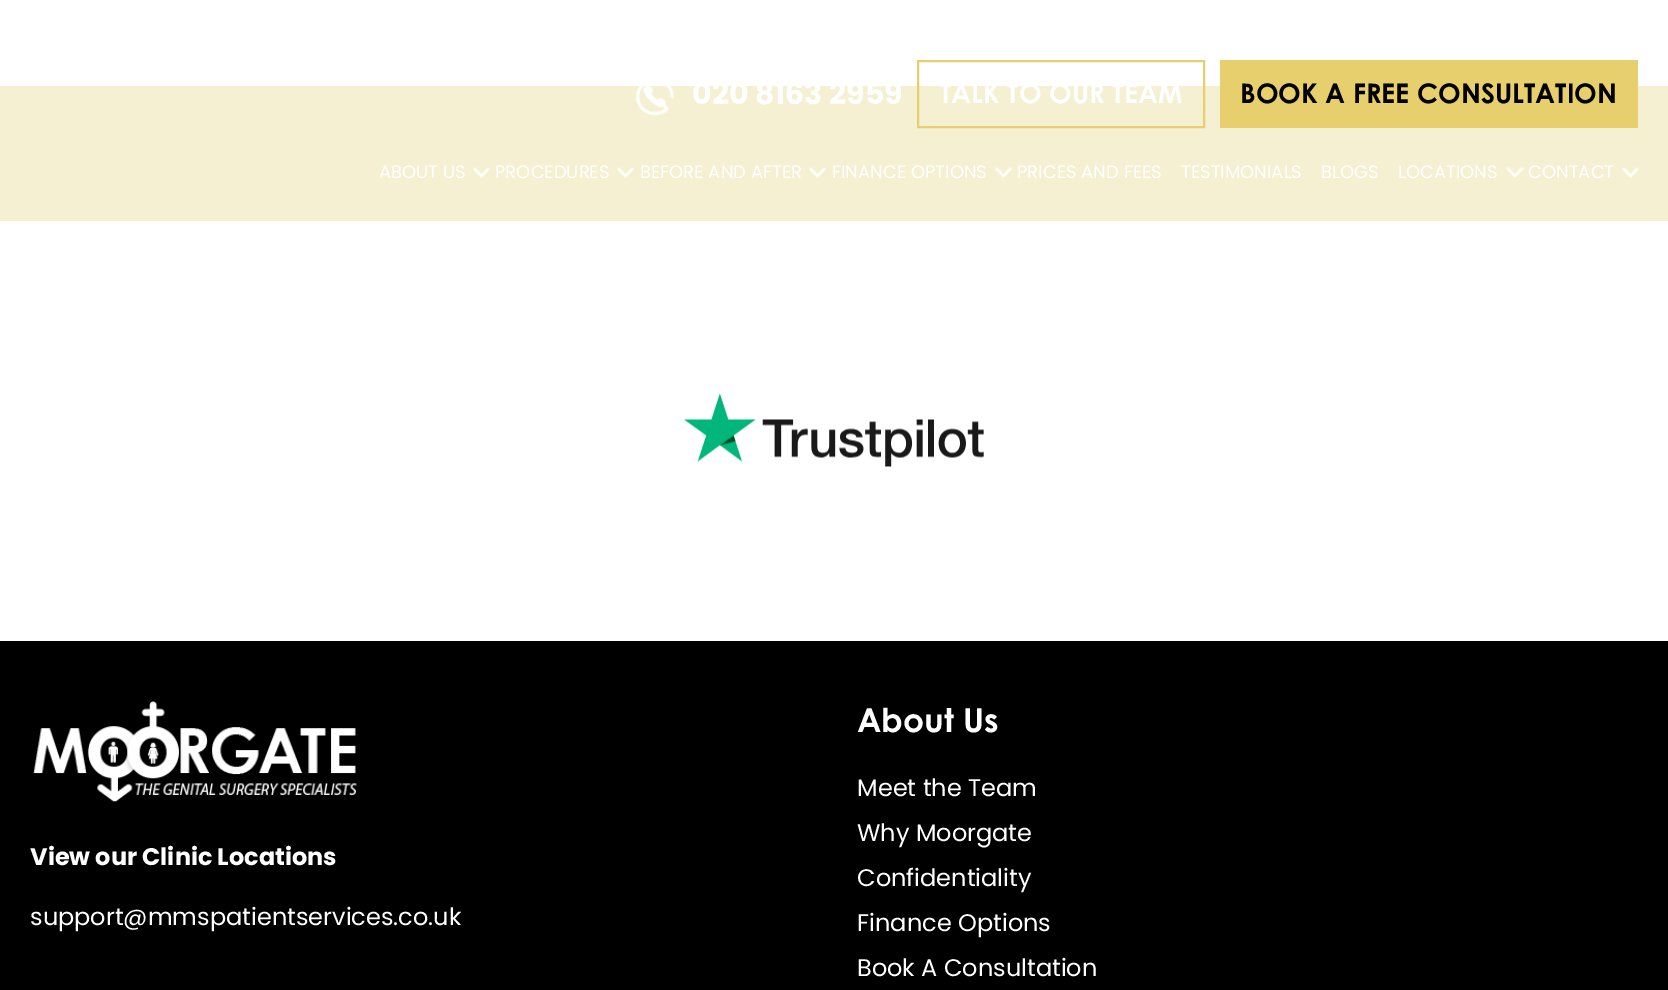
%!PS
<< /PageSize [1668 990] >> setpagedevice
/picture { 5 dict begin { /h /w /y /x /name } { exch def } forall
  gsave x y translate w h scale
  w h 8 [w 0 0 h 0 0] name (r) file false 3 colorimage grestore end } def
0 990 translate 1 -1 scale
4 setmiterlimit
1 setgray
0 0 1668 990 rectfill
0.961 0.941 0.824 setrgbcolor
0 86 1668 135 rectfill
(img1.rgb) 636 86 38 30 picture
/Poppins-Bold [30 0 0 -30 0 0] selectfont
1 setgray
692 104 moveto (020 8163 2959) show
0.906 0.812 0.427 setrgbcolor
2 setlinewidth
918 61 286 66 rectstroke
/CenturyGothic-Bold [27 0 0 -27 0 0] selectfont
1 setgray
940 103 moveto (TALK TO OUR TEAM) show
0.906 0.812 0.427 setrgbcolor
1220 60 418 68 rectfill
0 setgray
1240 103 moveto (BOOK A FREE CONSULTATION) show
/Poppins-Regular [18 0 0 -18 0 0] selectfont
1 setgray
379 178 moveto (ABOUT US) show
(img2.rgb) 473 167 17 12 picture
495 178 moveto (PROCEDURES) show
(img2.rgb) 617 167 17 12 picture
640 178 moveto (BEFORE AND AFTER) show
(img2.rgb) 809 167 17 12 picture
832 178 moveto (FINANCE OPTIONS) show
(img2.rgb) 995 167 17 12 picture
1017 178 moveto (PRICES AND FEES) show
1181 178 moveto (TESTIMONIALS) show
1321 178 moveto (BLOGS) show
1398 178 moveto (LOCATIONS) show
(img3.rgb) 1506 167 18 11 picture
1528 178 moveto (CONTACT) show
(img4.rgb) 1622 167 17 11 picture
(img5.rgb) 684 393 300 74 picture
0 setgray
0 641 1668 349 rectfill
(img6.rgb) 33 701 324 102 picture
/Poppins-Bold [24 0 0 -24 0 0] selectfont
1 setgray
30 865 moveto (View our Clinic Locations) show
/Poppins-Regular [24 0 0 -24 0 0] selectfont
30 925 moveto (support@mmspatientservices.co.uk) show
/CenturyGothic-Bold [33 0 0 -33 0 0] selectfont
857 732 moveto (About Us) show
/Poppins-Regular [24 0 0 -24 0 0] selectfont
857 796 moveto (Meet the Team) show
857 841 moveto (Why Moorgate) show
857 886 moveto (Confidentiality) show
857 931 moveto (Finance Options) show
857 976 moveto (Book A Consultation) show
showpage
